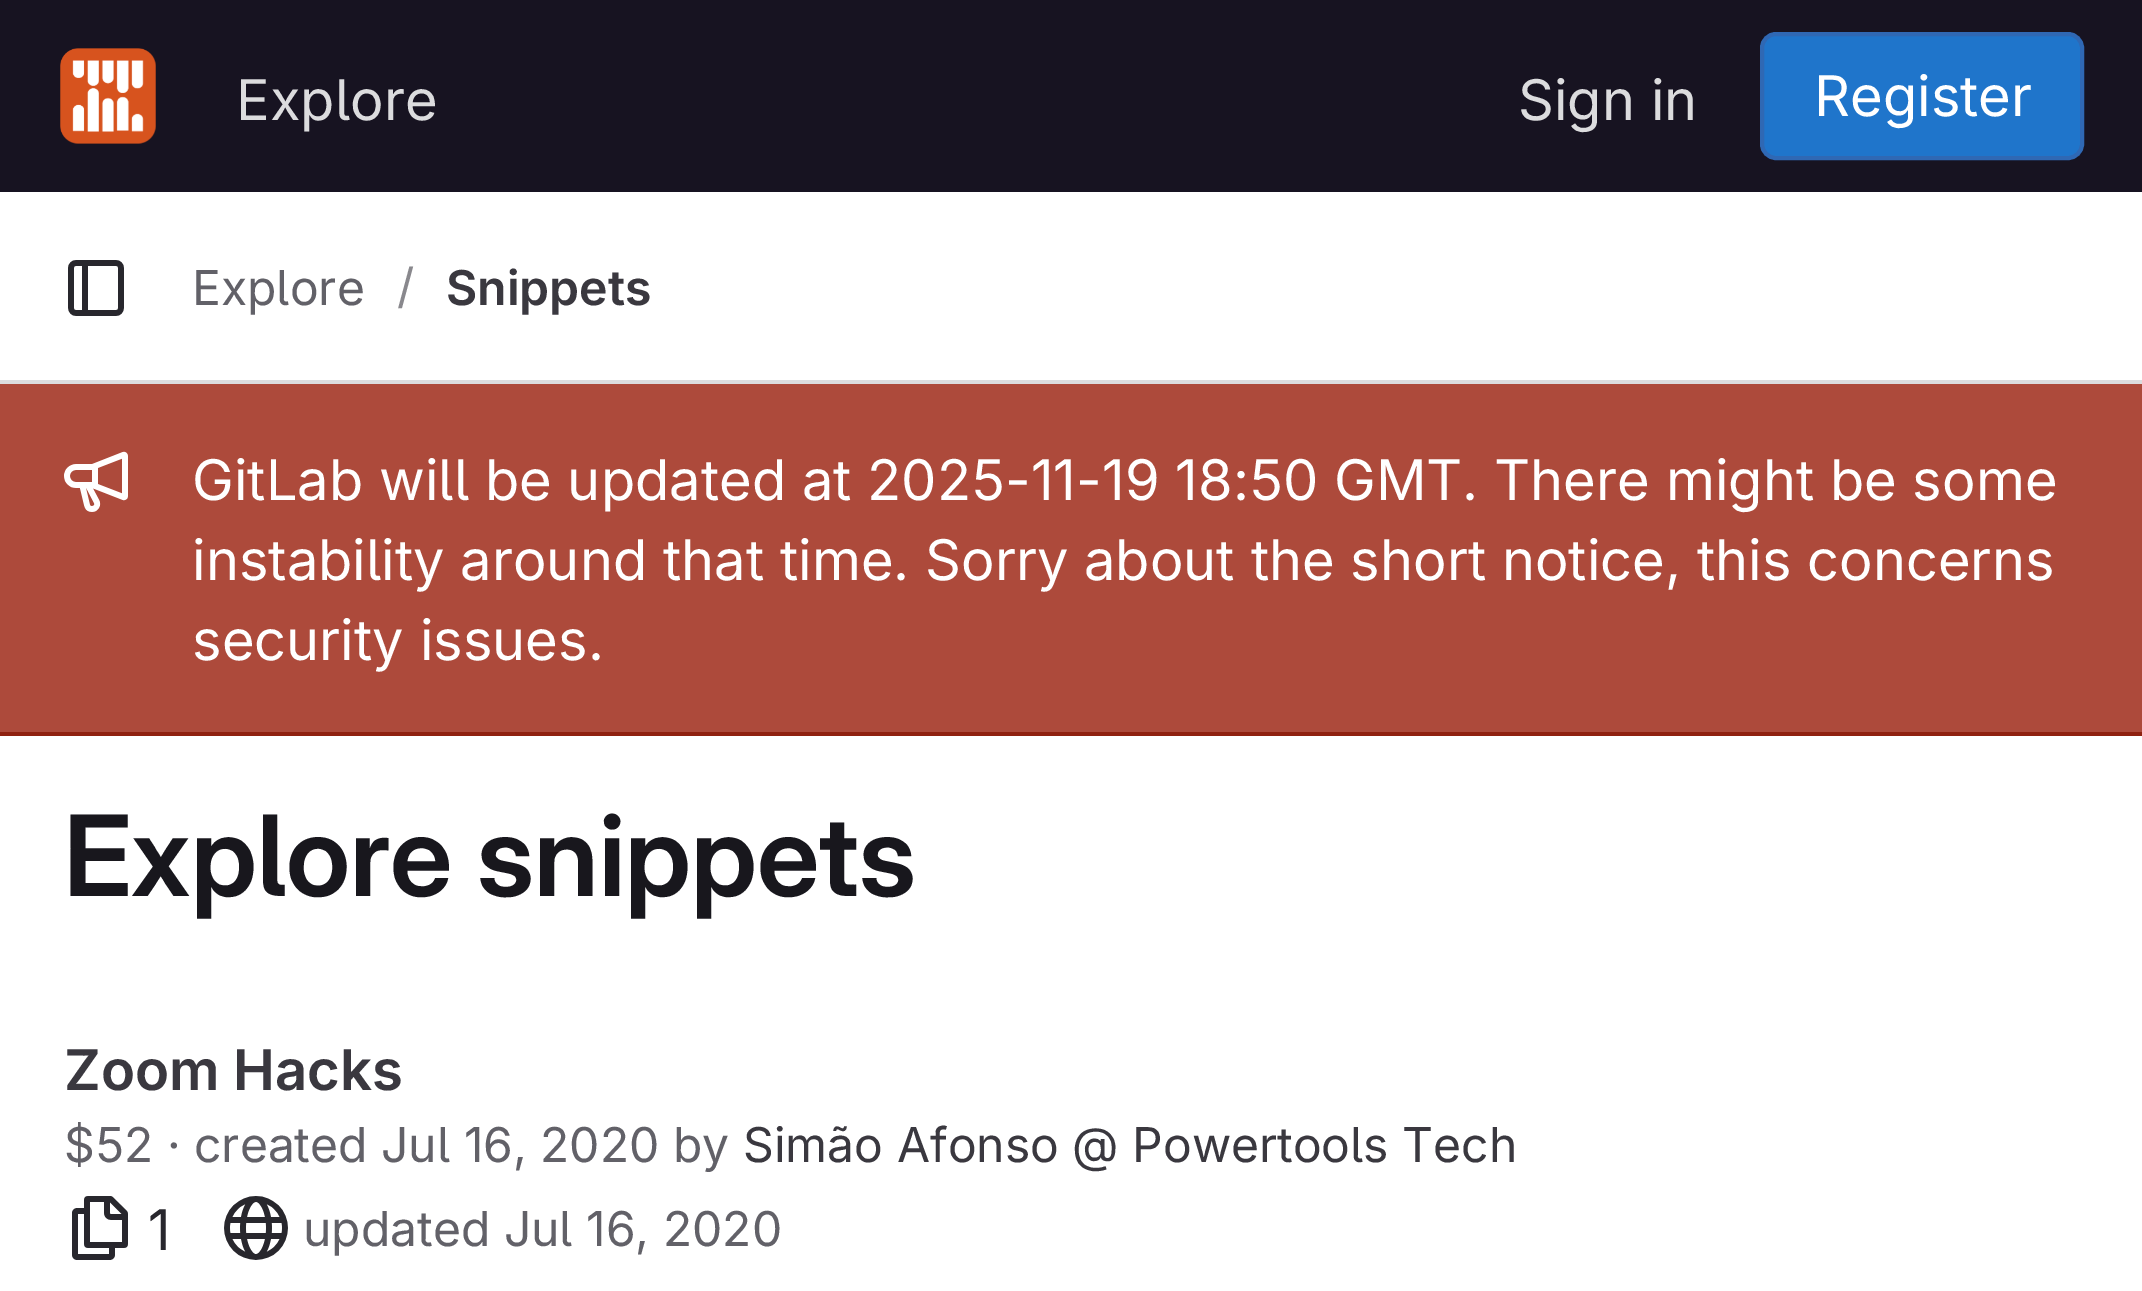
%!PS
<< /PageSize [2142 1291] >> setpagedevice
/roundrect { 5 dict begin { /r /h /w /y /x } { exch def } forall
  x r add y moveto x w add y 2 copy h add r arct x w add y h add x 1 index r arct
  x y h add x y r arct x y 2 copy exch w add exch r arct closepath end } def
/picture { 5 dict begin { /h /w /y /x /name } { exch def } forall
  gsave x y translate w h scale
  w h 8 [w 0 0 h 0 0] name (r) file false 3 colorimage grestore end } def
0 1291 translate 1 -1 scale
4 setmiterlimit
1 setgray
0 0 2142 1291 rectfill
0.09 0.075 0.129 setrgbcolor
0 0 2142 192 rectfill
(img1.rgb) 60 48 96 96 picture
/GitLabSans-Regular [56 0 0 -56 0 0] selectfont
0.863 0.863 0.871 setrgbcolor
236 120 moveto (Explore) show
1518 120 moveto (Sign in) show
0.122 0.459 0.796 setrgbcolor
1762 34 320 124 14 roundrect gsave fill grestore
0.184 0.408 0.706 setrgbcolor
4 setlinewidth
stroke
1 setgray
1814 116 moveto (Register) show
0.863 0.863 0.871 setrgbcolor
0 380 2142 4 rectfill
(img2.rgb) 68 260 56 56 picture
/GitLabSans-Regular [48 0 0 -48 0 0] selectfont
0.384 0.38 0.408 setrgbcolor
192 305 moveto (Explore) show
0.537 0.533 0.553 setrgbcolor
397 303 moveto (/) show
/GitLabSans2-SemiBold [48 0 0 -48 0 0] selectfont
0.227 0.22 0.247 setrgbcolor
446 305 moveto (Snippets) show
0.678 0.29 0.231 setrgbcolor
0 384 2142 348 rectfill
0.561 0.129 0.063 setrgbcolor
0 732 2142 4 rectfill
(img3.rgb) 64 451 64 61 picture
/GitLabSans-Regular [56 0 0 -56 0 0] selectfont
1 setgray
192 500 moveto (GitLab will be updated at 2025-11-19 18:50 GMT. There might be some) show
192 580 moveto (instability around that time. Sorry about the short notice, this concerns) show
192 660 moveto (security issues.) show
/GitLabSans-SemiBold [112 0 0 -112 0 0] selectfont
0.094 0.09 0.114 setrgbcolor
64 896 moveto (Explore snippets) show
/GitLabSans2-SemiBold [56 0 0 -56 0 0] selectfont
0.227 0.22 0.247 setrgbcolor
64 1090 moveto (Zoom Hacks) show
/GitLabSans-Regular [48 0 0 -48 0 0] selectfont
0.384 0.38 0.408 setrgbcolor
64 1162 moveto ($52 · created Jul 16, 2020 by) show
0.227 0.22 0.247 setrgbcolor
743 1162 moveto (Simão Afonso @ Powertools Tech) show
(img4.rgb) 72 1196 56 64 picture
/GitLabSans-Regular [56 0 0 -56 0 0] selectfont
0.157 0.153 0.176 setrgbcolor
148 1250 moveto (1) show
(img5.rgb) 224 1196 64 64 picture
/GitLabSans-Regular [48 0 0 -48 0 0] selectfont
0.384 0.38 0.408 setrgbcolor
303 1246 moveto (updated Jul 16, 2020) show
showpage
